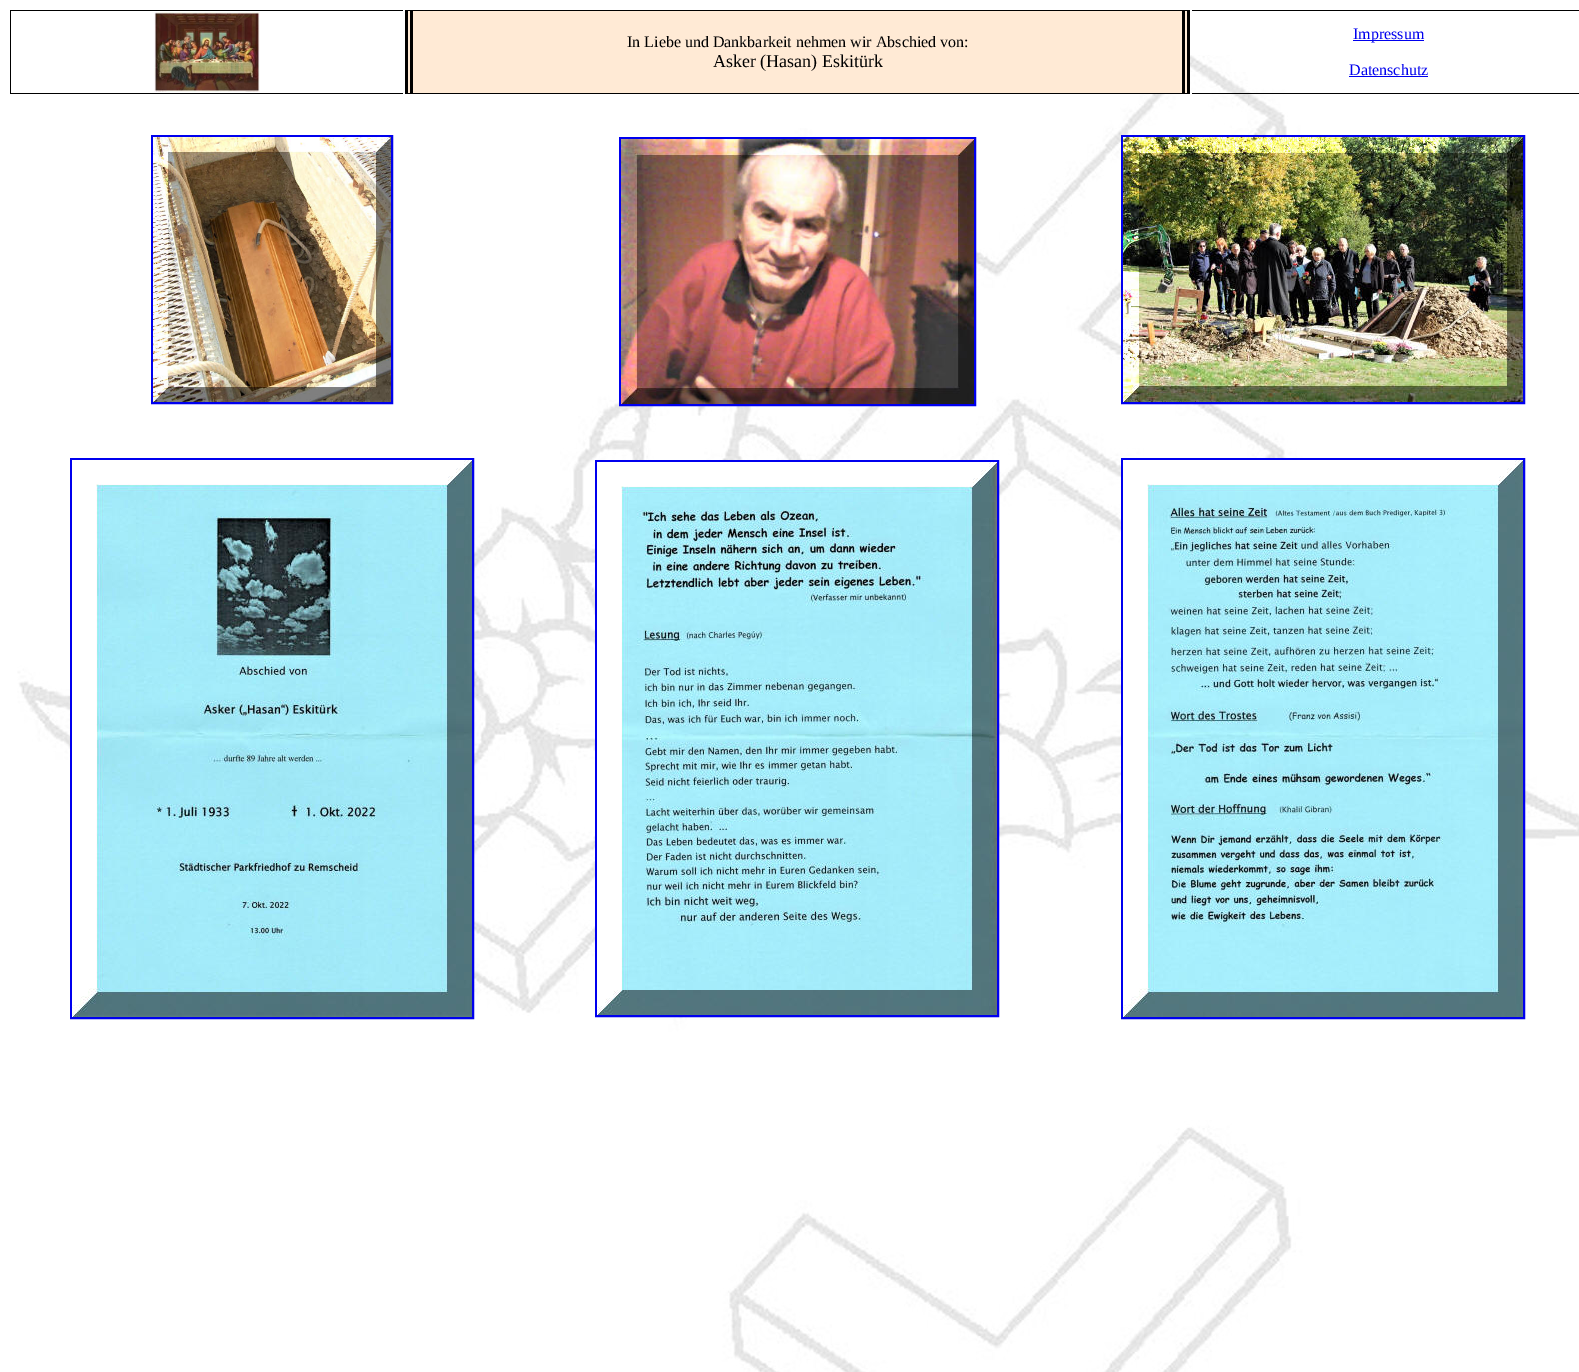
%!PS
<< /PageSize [1579 1372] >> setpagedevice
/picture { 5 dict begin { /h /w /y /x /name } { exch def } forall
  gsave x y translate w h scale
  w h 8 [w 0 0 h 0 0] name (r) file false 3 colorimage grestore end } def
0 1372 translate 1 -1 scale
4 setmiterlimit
1 setgray
0 0 1579 1372 rectfill
(img1.rgb) 17 55 1562 1317 picture
0 setgray
10 10 393 1 rectfill
10 93 393 1 rectfill
10 10 1 84 rectfill
(img2.rgb) 154 12 106 80 picture
1 0.918 0.835 setrgbcolor
408 11 779 82 rectfill
0 setgray
405 10 785 1 rectfill
1182 10 3 84 rectfill
1187 10 3 84 rectfill
405 93 785 1 rectfill
405 10 3 84 rectfill
410 10 3 84 rectfill
/LiberationSerif-Regular [16 0 0 -16 0 0] selectfont
627 47 moveto (In Liebe und Dankbarkeit nehmen wir Abschied von:) show
/LiberationSerif-Regular [18 0 0 -18 0 0] selectfont
713 67 moveto (Asker \(Hasan\) Eskitürk) show
1192 10 387 1 rectfill
1192 93 387 1 rectfill
0 0 0.933 setrgbcolor
1353 40 71 1 rectfill
/LiberationSerif-Regular [16 0 0 -16 0 0] selectfont
1353 39 moveto (Impressum) show
1349 75 moveto (Datenschutz) show
1349 76 79 1 rectfill
2 setlinewidth
152 136 240 267 rectstroke
(img3.rgb) 153 137 238 265 picture
71 459 402 559 rectstroke
(img4.rgb) 72 460 400 557 picture
620 138 355 267 rectstroke
(img5.rgb) 621 139 353 265 picture
596 461 402 555 rectstroke
(img6.rgb) 597 462 400 553 picture
1122 136 402 267 rectstroke
(img7.rgb) 1123 137 400 265 picture
1122 459 402 559 rectstroke
(img8.rgb) 1123 460 400 557 picture
showpage
